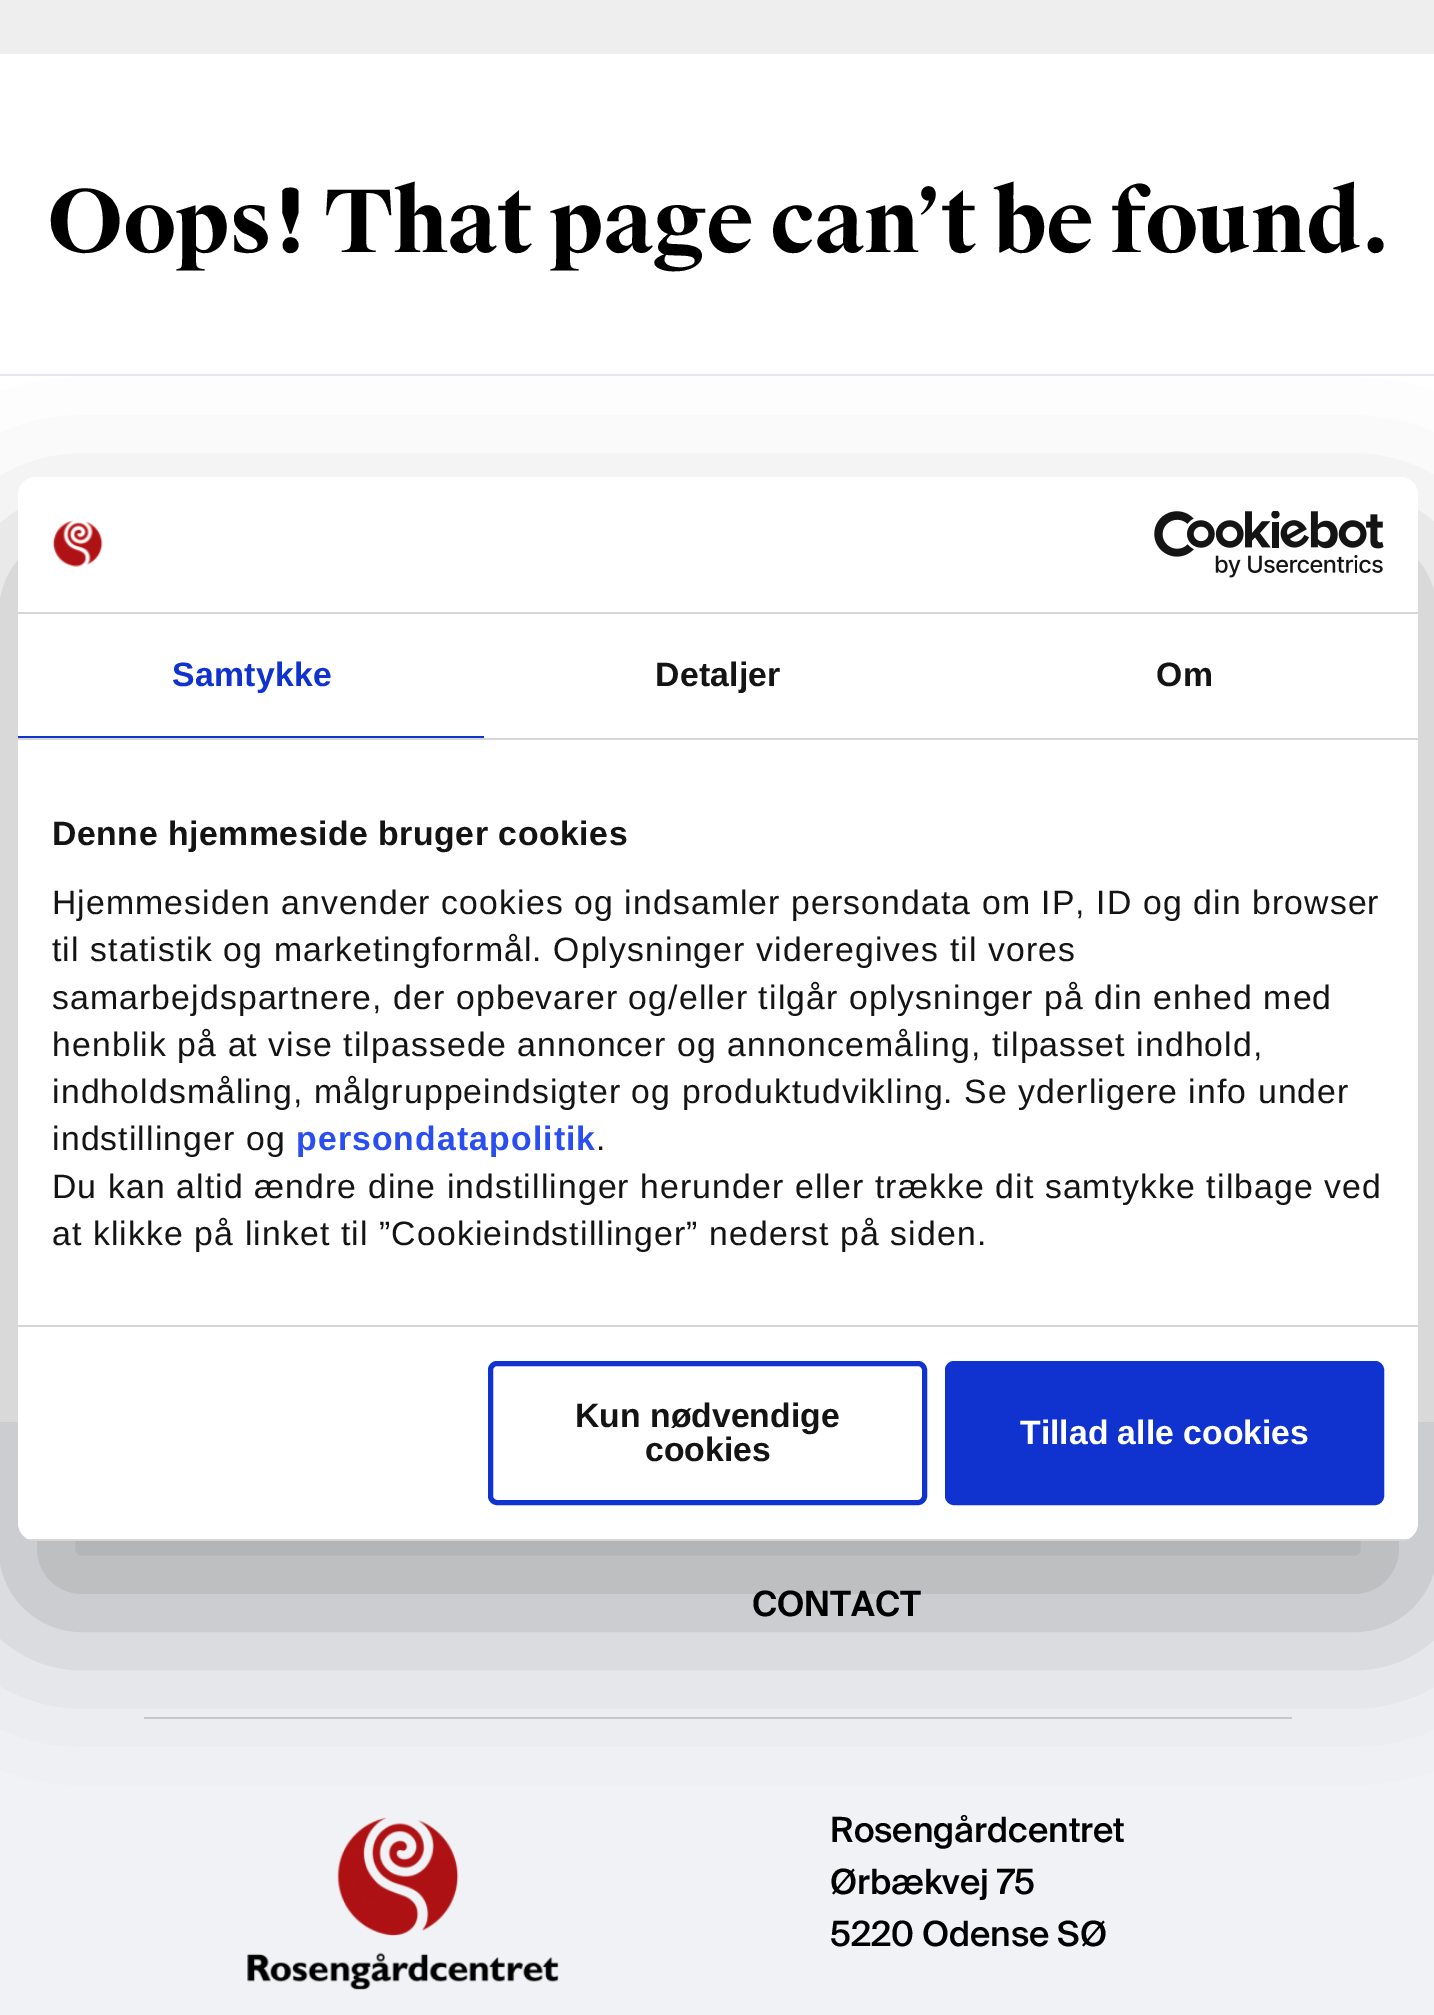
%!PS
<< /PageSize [1434 2015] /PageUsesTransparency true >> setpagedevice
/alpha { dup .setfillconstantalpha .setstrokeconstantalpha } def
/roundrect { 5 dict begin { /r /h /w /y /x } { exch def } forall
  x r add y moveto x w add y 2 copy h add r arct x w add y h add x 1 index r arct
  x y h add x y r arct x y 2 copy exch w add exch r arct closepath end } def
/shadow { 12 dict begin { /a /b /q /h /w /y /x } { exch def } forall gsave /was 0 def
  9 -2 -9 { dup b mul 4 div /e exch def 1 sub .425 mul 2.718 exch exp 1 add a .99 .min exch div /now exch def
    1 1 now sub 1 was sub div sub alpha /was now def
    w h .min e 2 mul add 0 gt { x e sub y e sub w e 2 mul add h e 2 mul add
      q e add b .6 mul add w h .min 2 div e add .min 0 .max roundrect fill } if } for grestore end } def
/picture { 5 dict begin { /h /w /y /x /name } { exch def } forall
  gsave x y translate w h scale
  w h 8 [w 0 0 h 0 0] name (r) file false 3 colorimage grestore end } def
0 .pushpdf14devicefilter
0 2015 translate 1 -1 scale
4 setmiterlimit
1 setgray
0 0 1434 2015 rectfill
0.933 setgray
0 0 1434 54 rectfill
/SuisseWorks-Bold [85.8 0 0 -85.8 0 0] selectfont
0 setgray
47 252 moveto -0.85 0 (Oops! That page can’t be found.) ashow
0.902 0.91 0.929 setrgbcolor
0 374 1434 2 rectfill
0.945 0.949 0.961 setrgbcolor
0 1422 1434 593 rectfill
/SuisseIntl-SemiBold [34.75 0 0 -34.75 0 0] selectfont
0 setgray
752 1616 moveto (CONTACT) show
0.784 0.796 0.827 setrgbcolor
144 1717 1148 2 rectfill
(img1.rgb) 247 1817 312 173 picture
/SuisseIntl-Medium [34.75 0 0 -34.75 0 0] selectfont
0 setgray
830 1842 moveto (Rosengårdcentret) show
830 1894 moveto (Ørbækvej 75) show
830 1946 moveto (5220 Odense SØ) show
18 549 1400 1064 18 76.5 0.3 shadow
1 setgray
18 477 1400 1064 18 roundrect fill
0.839 setgray
18 612 1400 2 rectfill
(img2.rgb) 52 520 51 48 picture
(img3.rgb) 1154 511 230 67 picture
18 738 1400 2 rectfill
0.063 0.196 0.812 setrgbcolor
18 736 466 2 rectfill
/LiberationSans-Bold [33.75 0 0 -33.75 0 0] selectfont
172 686 moveto 0.25 0 (Samtykke) ashow
0.078 setgray
655 686 moveto 0.25 0 (Detaljer) ashow
1156 686 moveto 0.25 0 (Om) ashow
0.839 setgray
18 1325 1400 2 rectfill
0.078 setgray
52 845 moveto 0.55 0 (Denne hjemmeside bruger cookies) ashow
/LiberationSans-Regular [33.75 0 0 -33.75 0 0] selectfont
52 914 moveto 1.12 0 (Hjemmesiden anvender cookies og indsamler persondata om IP, ID og din browser) ashow
52 961 moveto 1.12 0 (til statistik og marketingformål. Oplysninger videregives til vores) ashow
52 1009 moveto 1.12 0 (samarbejdspartnere, der opbevarer og/eller tilgår oplysninger på din enhed med) ashow
52 1056 moveto 1.12 0 (henblik på at vise tilpassede annoncer og annoncemåling, tilpasset indhold,) ashow
52 1103 moveto 1.12 0 (indholdsmåling, målgruppeindsigter og produktudvikling. Se yderligere info under) ashow
52 1150 moveto 1.12 0 (indstillinger og) ashow
/LiberationSans-Bold [33.75 0 0 -33.75 0 0] selectfont
0.165 0.306 0.937 setrgbcolor
296 1150 moveto 1.12 0 (persondatapolitik) ashow
/LiberationSans-Regular [33.75 0 0 -33.75 0 0] selectfont
0.078 setgray
596 1150 moveto 1.12 0 (.) ashow
52 1198 moveto 1.12 0 (Du kan altid ændre dine indstillinger herunder eller trække dit samtykke tilbage ved) ashow
52 1245 moveto 1.12 0 (at klikke på linket til ”Cookieindstillinger” nederst på siden.) ashow
gsave
18 477 1400 1064 18 roundrect clip newpath
0.839 setgray
28 1539 1380 2 rectfill
grestore
0.063 0.196 0.812 setrgbcolor
5 setlinewidth
490.5 1363.5 434 139 6.5 roundrect stroke
/LiberationSans-Bold [33.75 0 0 -33.75 0 0] selectfont
0.078 setgray
575 1427 moveto (Kun nødvendige) show
645 1461 moveto (cookies) show
0.063 0.196 0.812 setrgbcolor
947.5 1363.5 434 139 6.5 roundrect gsave fill grestore
stroke
1 setgray
1020 1444 moveto (Tillad alle cookies) show
.poppdf14devicefilter showpage
